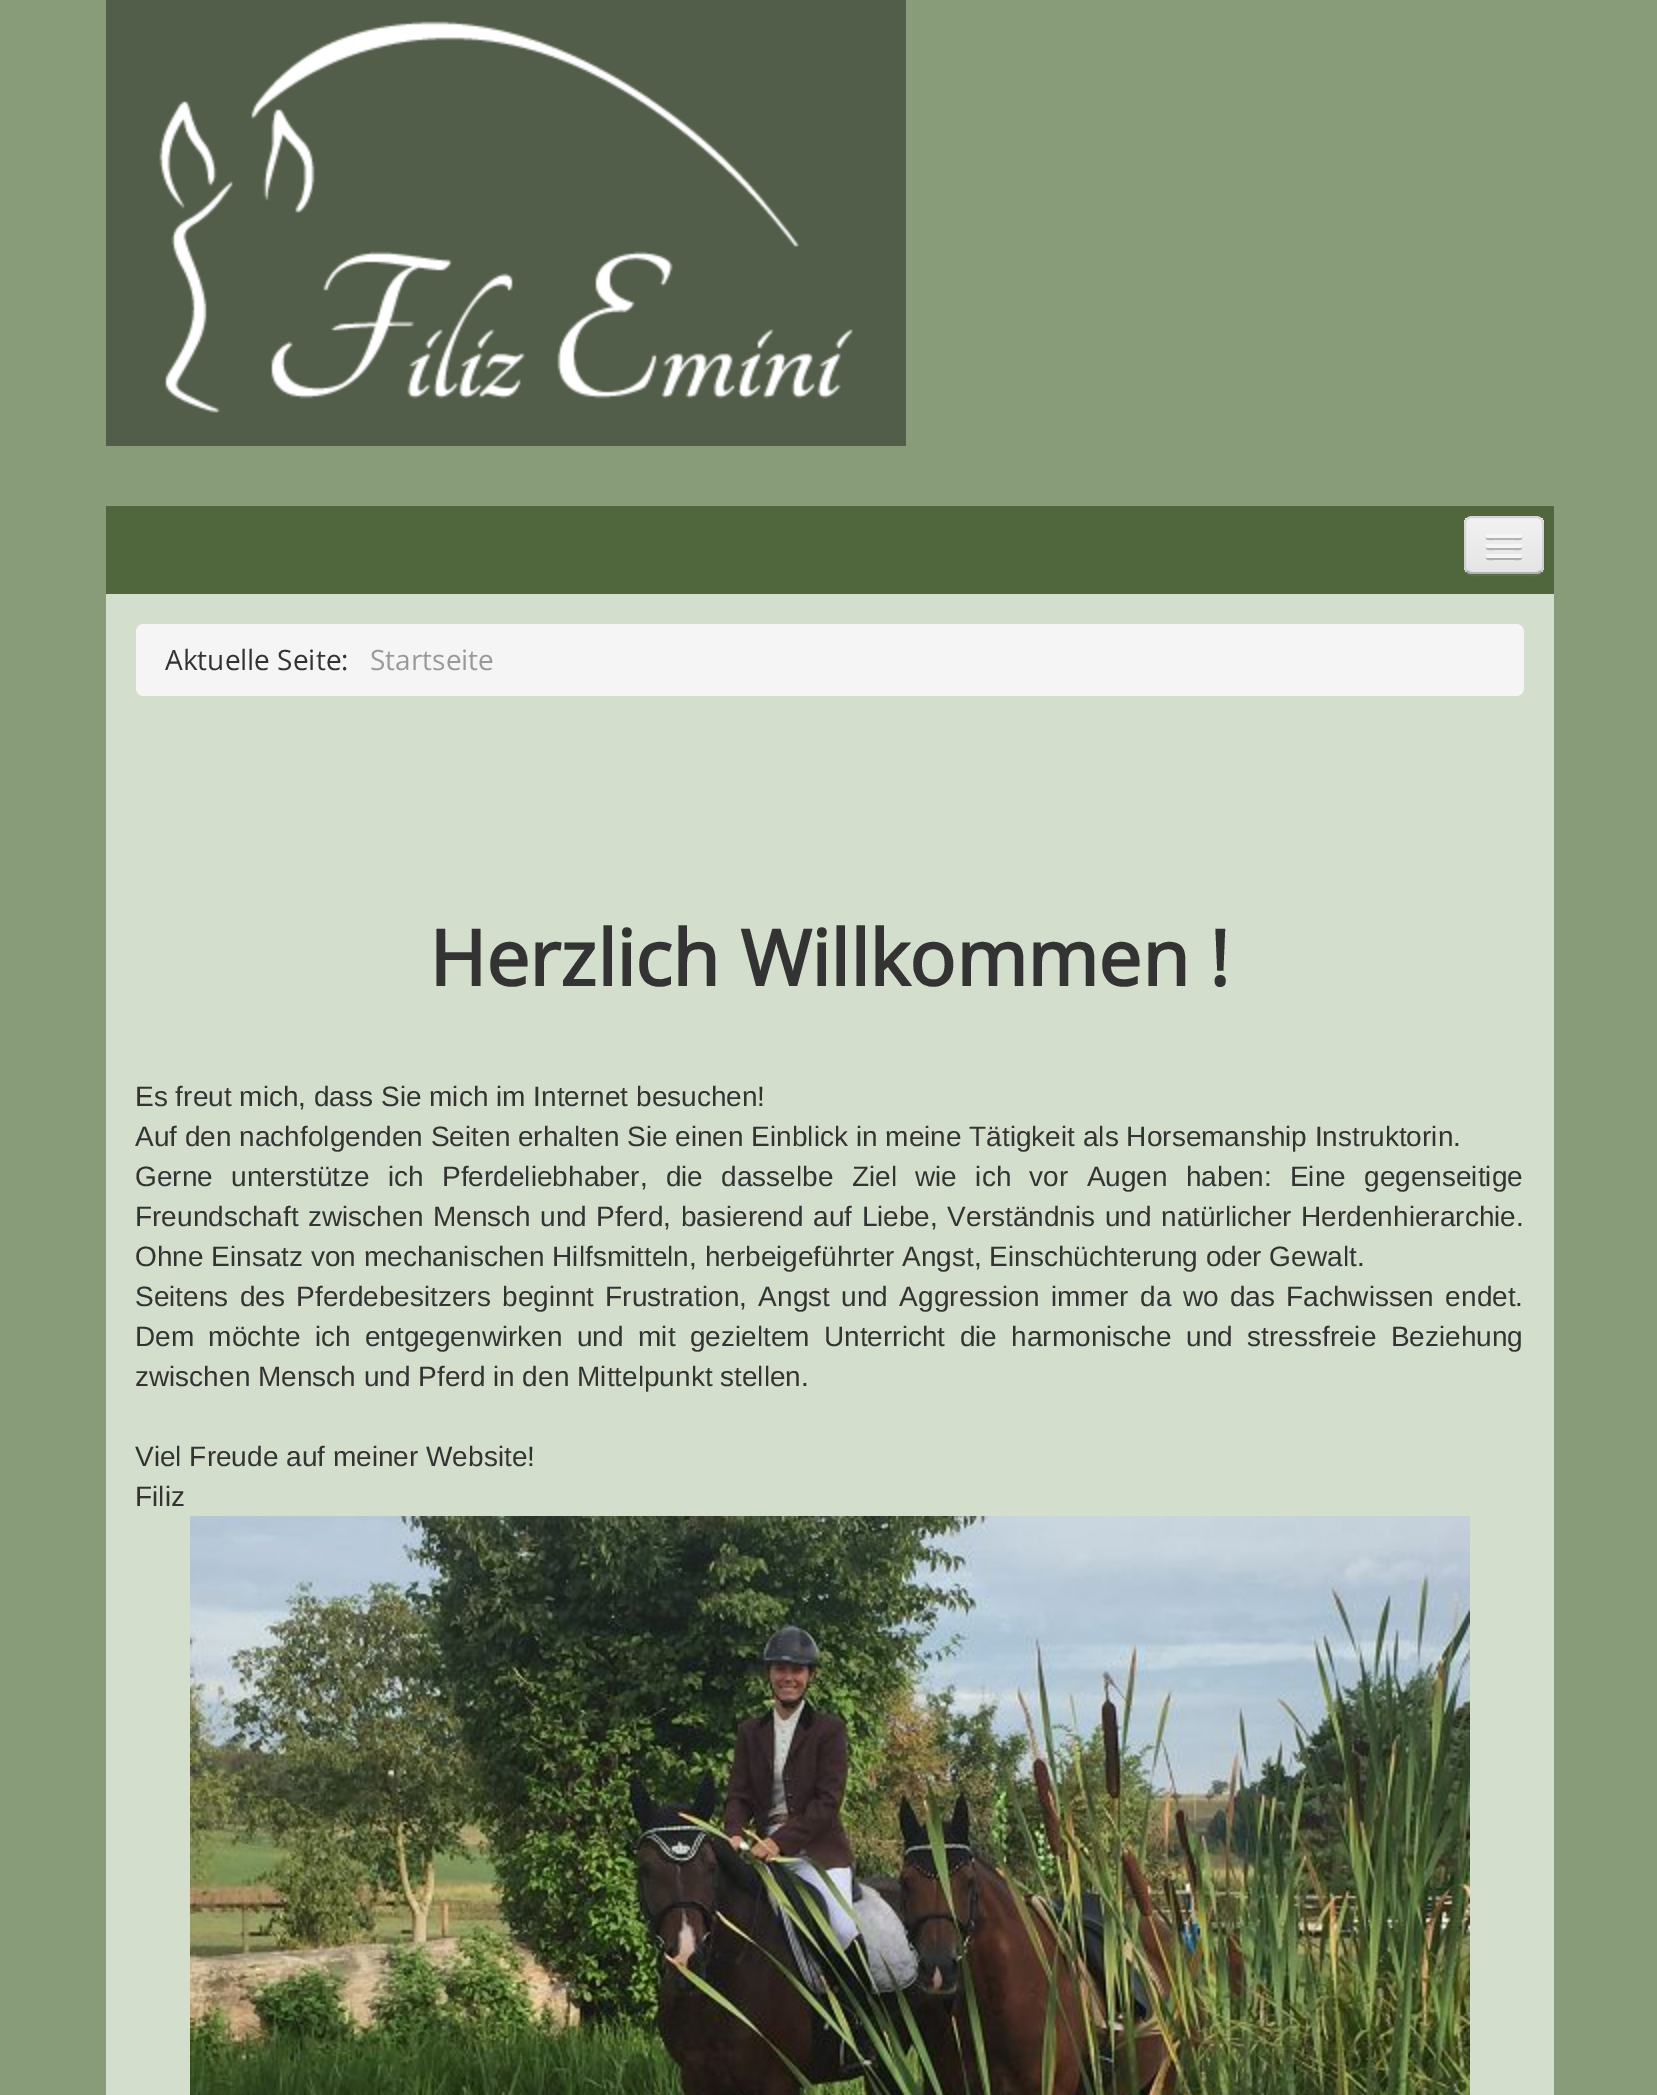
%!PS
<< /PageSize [1657 2095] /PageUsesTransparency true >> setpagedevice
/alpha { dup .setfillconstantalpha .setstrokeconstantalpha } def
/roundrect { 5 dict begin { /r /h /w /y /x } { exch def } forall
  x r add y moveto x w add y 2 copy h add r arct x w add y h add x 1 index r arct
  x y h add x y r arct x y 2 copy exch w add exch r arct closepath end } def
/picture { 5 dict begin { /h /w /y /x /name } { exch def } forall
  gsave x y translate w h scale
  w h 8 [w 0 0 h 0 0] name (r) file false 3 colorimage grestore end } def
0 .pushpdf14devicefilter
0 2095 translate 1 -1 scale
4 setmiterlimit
0.537 0.612 0.475 setrgbcolor
0 0 1657 2095 rectfill
(img1.rgb) 106 0 800 446 picture
0.314 0.4 0.239 setrgbcolor
106 506 1448 88 rectfill
0.365 0.443 0.298 setrgbcolor
newpath 1464 566 moveto 1464 578 1473 576 1483 576 curveto 1525 576 lineto 1535 576 1544 578 1544 566 curveto 1544 570 1540 574 1536 574 curveto 1472 574 lineto 1468 574 1464 570 1464 566 curveto closepath fill
0.929 setgray
1464 516 80 58 8 roundrect fill
gsave
1464 516 80 58 8 roundrect clip newpath
gsave newpath 1464 518 moveto 1544 518 lineto 1544 572 lineto 1464 572 lineto closepath clip newpath
<< /ShadingType 2 /ColorSpace /DeviceRGB /Coords [1504 518 1504 572] /Extend [true true] /Function << /FunctionType 2 /Domain [0 1] /C0 [0.949 0.949 0.949] /C1 [0.898 0.898 0.898] /N 1 >> >> shfill grestore
grestore
0.25 alpha
0 setgray
2 setlinewidth
newpath 1541 571 moveto 1539.5 572.5 1538 573 1536 573 curveto 1472 573 lineto 1470 573 1468.5 572.5 1467 571 curveto stroke
0.1 alpha
newpath 1467 571 moveto 1465.5 569.5 1465 568 1465 566 curveto 1465 524 lineto 1465 522 1465.5 520.5 1467 519 curveto 1468.5 517.5 1470 517 1472 517 curveto 1536 517 lineto 1538 517 1539.5 517.5 1541 519 curveto 1542.5 520.5 1543 522 1543 524 curveto 1543 566 lineto 1543 568 1542.5 569.5 1541 571 curveto stroke
1 alpha
0.698 setgray
newpath 1486.5 537 moveto 1484 541 1493 540 1493.5 540 curveto 1514.5 540 lineto 1515 540 1524 541 1521.5 537 curveto 1521.5 537.5 1520.5 538 1520 538 curveto 1488 538 lineto 1487.5 538 1486.5 537.5 1486.5 537 curveto closepath fill
0.961 setgray
1486 534 36 4 2 roundrect fill
0.69 setgray
newpath 1486.5 547 moveto 1484 551 1493 550 1493.5 550 curveto 1514.5 550 lineto 1515 550 1524 551 1521.5 547 curveto 1521.5 547.5 1520.5 548 1520 548 curveto 1488 548 lineto 1487.5 548 1486.5 547.5 1486.5 547 curveto closepath fill
0.961 setgray
1486 544 36 4 2 roundrect fill
0.682 setgray
newpath 1486.5 557 moveto 1484 561 1493 560 1493.5 560 curveto 1514.5 560 lineto 1515 560 1524 561 1521.5 557 curveto 1521.5 557.5 1520.5 558 1520 558 curveto 1488 558 lineto 1487.5 558 1486.5 557.5 1486.5 557 curveto closepath fill
0.961 setgray
1486 554 36 4 2 roundrect fill
0.831 0.871 0.8 setrgbcolor
106 594 1448 1501 rectfill
0.961 setgray
136 624 1388 72 8 roundrect fill
/OpenSans-Regular [28 0 0 -28 0 0] selectfont
0.2 setgray
165 670 moveto (Aktuelle Seite:) show
0.6 setgray
370 670 moveto (Startseite) show
/OpenSans-Bold [77 0 0 -77 0 0] selectfont
0.2 setgray
429 986 moveto (Herzlich Willkommen !) show
/LiberationSans-Regular [28 0 0 -28 0 0] selectfont
135 1106 moveto (Es freut mich, dass Sie mich im Internet besuchen!) show
135 1146 moveto (Auf den nachfolgenden Seiten erhalten Sie einen Einblick in meine Tätigkeit als Horsemanship Instruktorin.) show
135 1186 moveto 10.5 0 32 (Gerne unterstütze ich Pferdeliebhaber, die dasselbe Ziel wie ich vor Augen haben: Eine gegenseitige) widthshow
135 1226 moveto 1.75 0 32 (Freundschaft zwischen Mensch und Pferd, basierend auf Liebe, Verständnis und natürlicher Herdenhierarchie.) widthshow
135 1266 moveto (Ohne Einsatz von mechanischen Hilfsmitteln, herbeigeführter Angst, Einschüchterung oder Gewalt.) show
135 1306 moveto 3.6 0 32 (Seitens des Pferdebesitzers beginnt Frustration, Angst und Aggression immer da wo das Fachwissen endet.) widthshow
135 1346 moveto 6.6 0 32 (Dem möchte ich entgegenwirken und mit gezieltem Unterricht die harmonische und stressfreie Beziehung) widthshow
135 1386 moveto (zwischen Mensch und Pferd in den Mittelpunkt stellen.) show
135 1466 moveto (Viel Freude auf meiner Website!) show
135 1506 moveto (Filiz) show
(img2.rgb) 190 1516 1280 579 picture
.poppdf14devicefilter showpage
